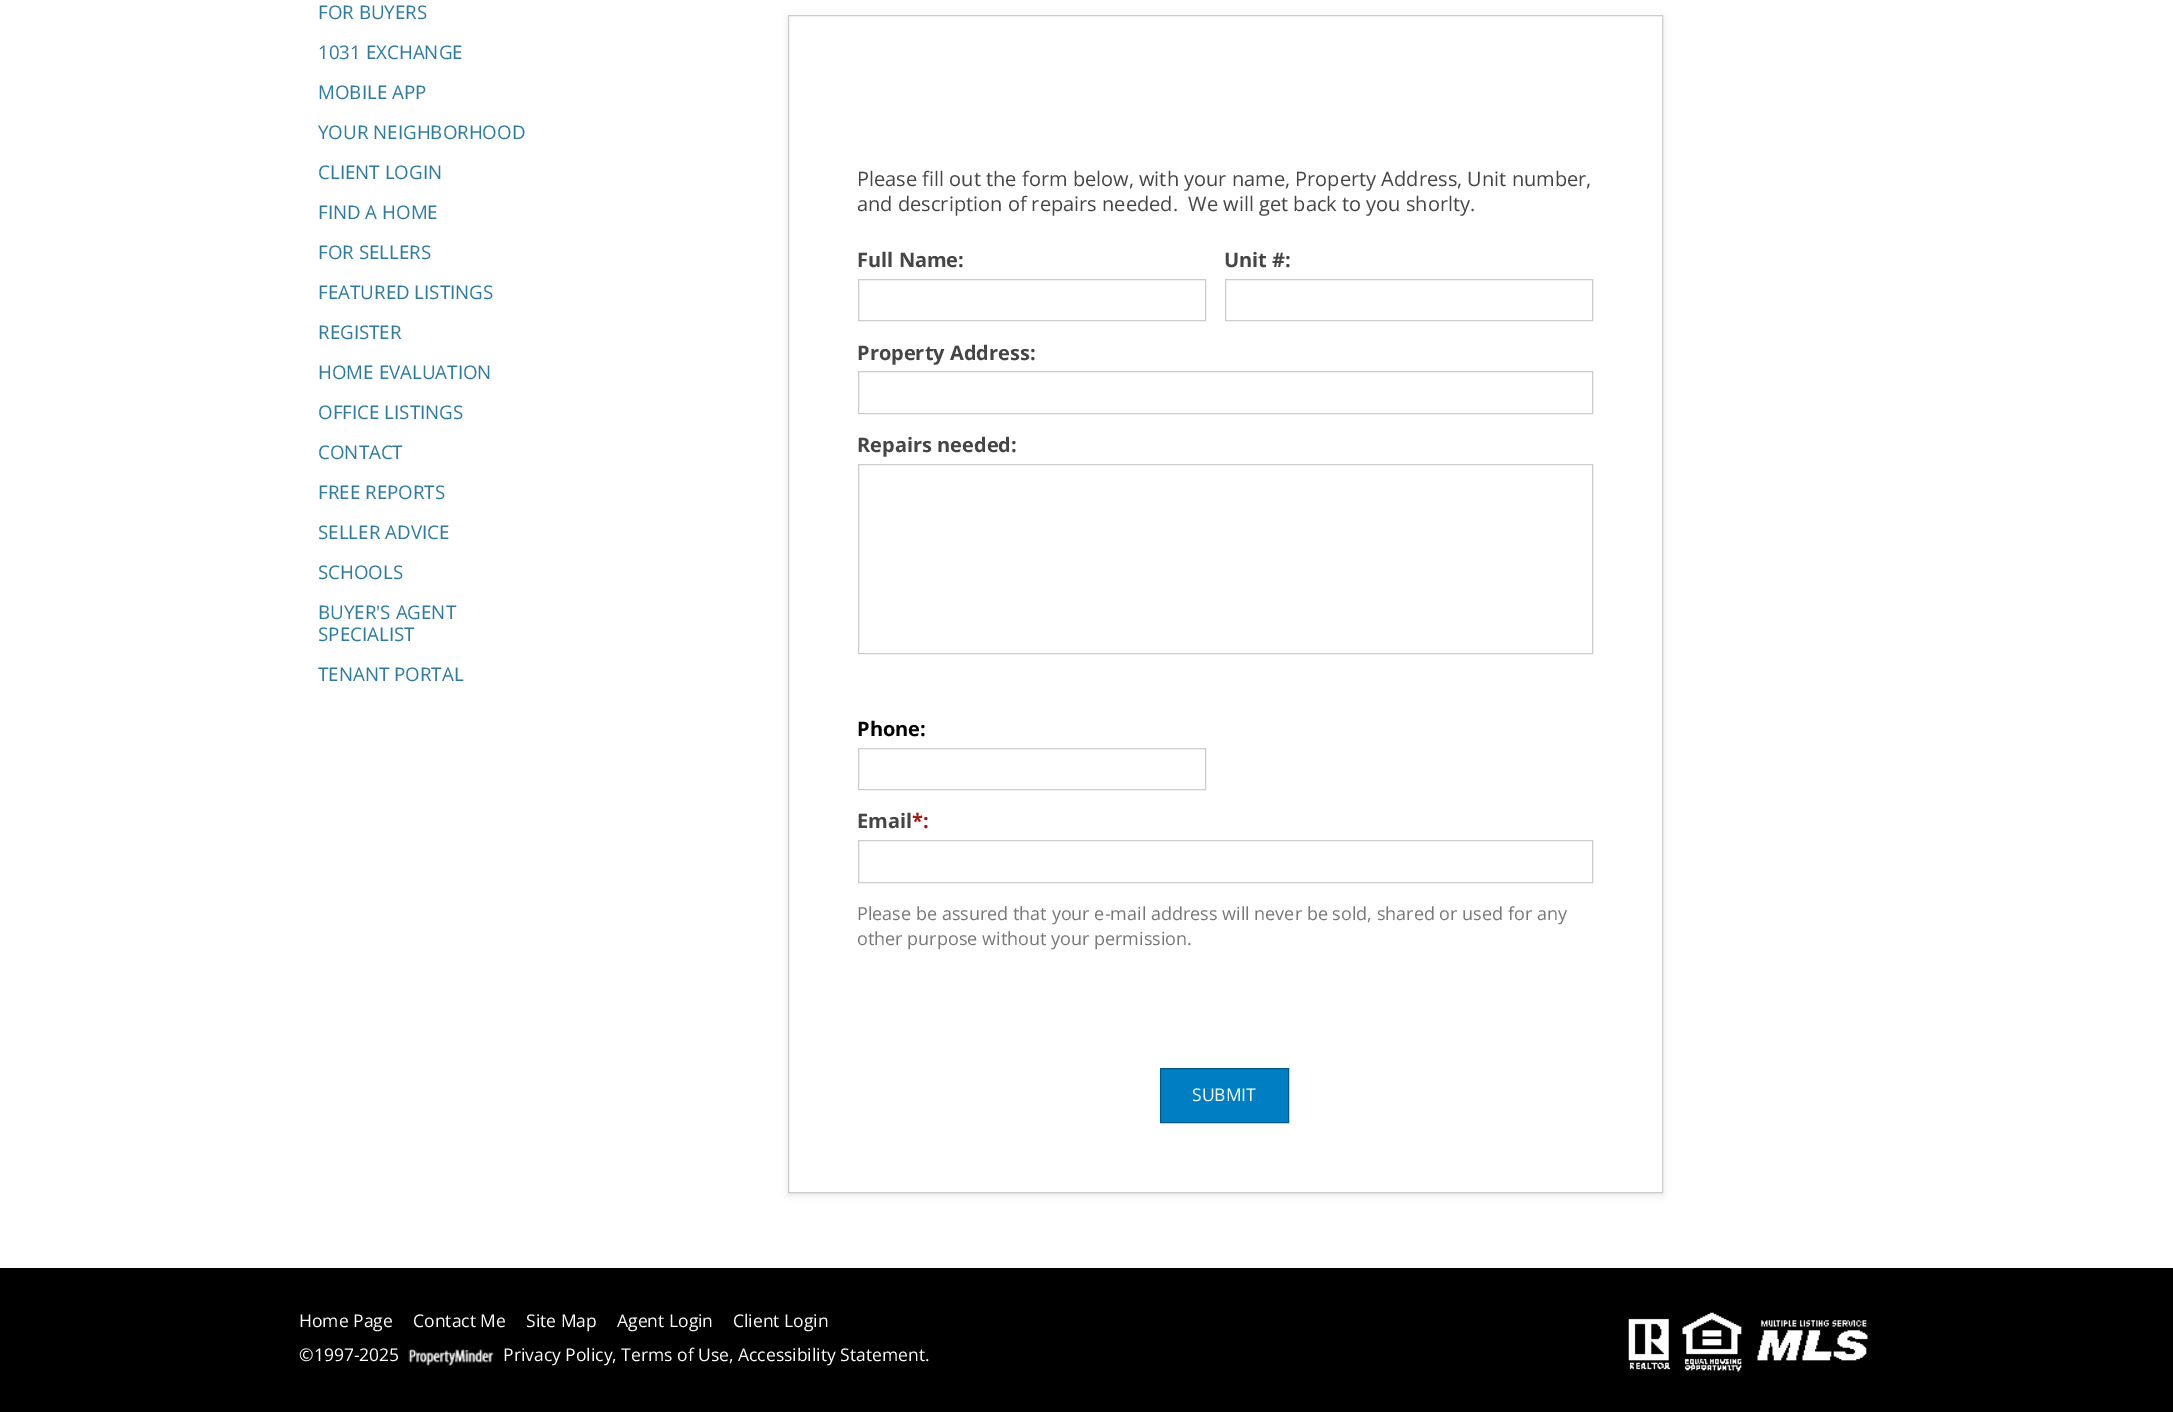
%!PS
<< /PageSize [2173 1412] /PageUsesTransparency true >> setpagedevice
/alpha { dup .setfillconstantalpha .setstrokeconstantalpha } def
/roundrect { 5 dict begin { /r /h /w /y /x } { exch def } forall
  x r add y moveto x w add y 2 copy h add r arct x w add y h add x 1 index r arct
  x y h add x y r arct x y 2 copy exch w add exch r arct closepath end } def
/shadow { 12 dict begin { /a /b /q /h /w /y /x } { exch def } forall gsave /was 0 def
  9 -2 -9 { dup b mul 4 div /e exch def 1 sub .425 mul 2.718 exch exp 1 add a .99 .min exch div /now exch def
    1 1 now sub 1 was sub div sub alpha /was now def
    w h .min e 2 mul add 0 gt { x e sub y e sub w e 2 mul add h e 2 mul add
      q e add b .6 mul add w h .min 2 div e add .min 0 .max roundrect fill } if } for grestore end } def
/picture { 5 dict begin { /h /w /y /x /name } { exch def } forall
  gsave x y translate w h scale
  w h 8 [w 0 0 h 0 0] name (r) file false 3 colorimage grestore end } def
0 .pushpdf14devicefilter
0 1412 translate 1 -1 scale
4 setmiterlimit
1 setgray
0 0 2173 1412 rectfill
/OpenSans-Regular [18.75 0 0 -18.75 0 0] selectfont
0.18 0.482 0.627 setrgbcolor
318 19 moveto (FOR BUYERS) show
318 59 moveto (1031 EXCHANGE) show
318 99 moveto (MOBILE APP) show
318 139 moveto (YOUR NEIGHBORHOOD) show
318 179 moveto (CLIENT LOGIN) show
318 219 moveto (FIND A HOME) show
318 259 moveto (FOR SELLERS) show
318 299 moveto (FEATURED LISTINGS) show
318 339 moveto (REGISTER) show
318 379 moveto (HOME EVALUATION) show
318 419 moveto (OFFICE LISTINGS) show
318 459 moveto (CONTACT) show
318 499 moveto (FREE REPORTS) show
318 539 moveto (SELLER ADVICE) show
318 579 moveto (SCHOOLS) show
318 619 moveto (BUYER'S AGENT) show
318 641 moveto (SPECIALIST) show
318 681 moveto (TENANT PORTAL) show
0 setgray
788 18 875 1177 0 4 0.1 shadow
1 setgray
newpath 788.5 15.5 moveto 1662.5 15.5 lineto 1662.5 1192.5 lineto 788.5 1192.5 lineto closepath gsave fill grestore
0.8 setgray
stroke
/OpenSans-Regular [20 0 0 -20 0 0] selectfont
0.271 setgray
857 186 moveto (Please fill out the form below, with your name, Property Address, Unit number,) show
857 211 moveto (and description of repairs needed.  We will get back to you shorlty.) show
/OpenSans-Bold [20 0 0 -20 0 0] selectfont
857 267 moveto (Full Name:) show
0.8 setgray
858.5 279.5 347 41 rectstroke
0.271 setgray
1224 267 moveto (Unit #:) show
0.8 setgray
1225.5 279.5 367 41 rectstroke
0.271 setgray
857 360 moveto (Property Address:) show
0.8 setgray
858.5 371.5 734 42 rectstroke
0.271 setgray
857 452 moveto (Repairs needed:) show
0.8 setgray
858.5 464.5 734 189 rectstroke
0 setgray
857 736 moveto (Phone:) show
0.8 setgray
858.5 748.5 347 41 rectstroke
0.271 setgray
857 828 moveto (Email) show
0.647 0.09 0.059 setrgbcolor
912 828 moveto (*:) show
0.8 setgray
858.5 840.5 734 42 rectstroke
/OpenSans-Regular [18 0 0 -18 0 0] selectfont
0.467 setgray
857 920 moveto (Please be assured that your e-mail address will never be sold, shared or used for any) show
857 945 moveto (other purpose without your permission.) show
0 0.494 0.769 setrgbcolor
newpath 1160.5 1068.5 moveto 1288.5 1068.5 lineto 1288.5 1122.5 lineto 1160.5 1122.5 lineto closepath gsave fill grestore
0 0.353 0.549 setrgbcolor
stroke
/OpenSans-Regular [17.5 0 0 -17.5 0 0] selectfont
1 setgray
1192 1101 moveto (SUBMIT) show
0 setgray
0 1268 2173 144 rectfill
1 setgray
299 1327 moveto (Home Page) show
413 1327 moveto (Contact Me) show
526 1327 moveto (Site Map) show
617 1327 moveto (Agent Login) show
733 1327 moveto (Client Login) show
(img1.rgb) 1628 1312 240 60 picture
299 1361 moveto (©1997-2025) show
(img2.rgb) 408 1349 86 17 picture
503 1361 moveto (Privacy Policy, Terms of Use, Accessibility Statement.) show
.poppdf14devicefilter showpage
